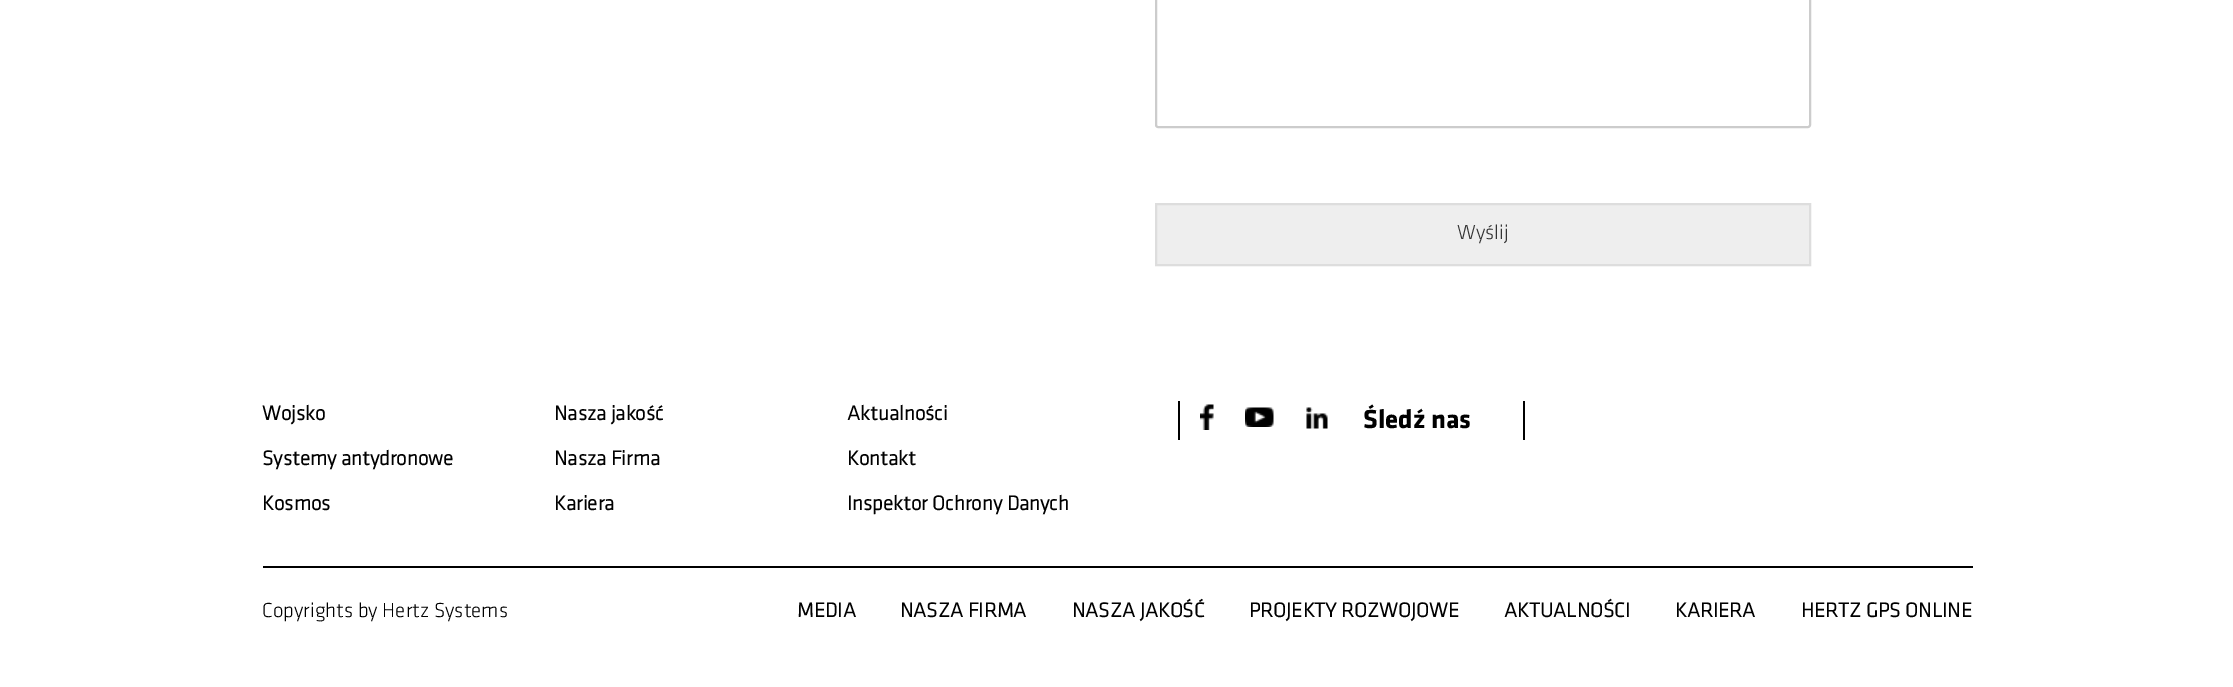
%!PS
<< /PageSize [2233 687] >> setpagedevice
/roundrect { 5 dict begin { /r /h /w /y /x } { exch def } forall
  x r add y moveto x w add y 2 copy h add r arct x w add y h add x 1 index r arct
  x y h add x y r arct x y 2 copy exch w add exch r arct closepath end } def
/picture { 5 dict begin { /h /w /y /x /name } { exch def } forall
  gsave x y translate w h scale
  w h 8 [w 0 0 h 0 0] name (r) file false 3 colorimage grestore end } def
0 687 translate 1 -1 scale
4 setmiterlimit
1 setgray
0 0 2233 687 rectfill
0.8 setgray
2 setlinewidth
1156 -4 654 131 2 roundrect stroke
0.933 setgray
newpath 1156 204 moveto 1810 204 lineto 1810 265 lineto 1156 265 lineto closepath gsave fill grestore
0.867 setgray
stroke
/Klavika-Light [21 0 0 -21 0 0] selectfont
0.2 setgray
1457 239 moveto (Wyślij) show
/Klavika-Bold [21 0 0 -21 0 0] selectfont
0 setgray
262 420 moveto (Wojsko) show
262 465 moveto (Systemy antydronowe) show
262 510 moveto (Kosmos) show
554 420 moveto (Nasza jakość) show
554 465 moveto (Nasza Firma) show
554 510 moveto (Kariera) show
847 420 moveto (Aktualności) show
847 465 moveto (Kontakt) show
847 510 moveto (Inspektor Ochrony Danych) show
1523 401 2 39 rectfill
1178 401 2 39 rectfill
(img1.rgb) 1200 404 14 26 picture
(img2.rgb) 1245 407 29 20 picture
(img3.rgb) 1306 407 22 22 picture
/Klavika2-Bold [27 0 0 -27 0 0] selectfont
1363 428 moveto (Śledź nas) show
263 566 1710 2 rectfill
/Klavika-Light [21 0 0 -21 0 0] selectfont
262 617 moveto (Copyrights by Hertz Systems) show
/Klavika-Bold [21 0 0 -21 0 0] selectfont
797 617 moveto (MEDIA) show
900 617 moveto (NASZA FIRMA) show
1072 617 moveto (NASZA JAKOŚĆ) show
1249 617 moveto (PROJEKTY ROZWOJOWE) show
1504 617 moveto (AKTUALNOŚCI) show
1675 617 moveto (KARIERA) show
1801 617 moveto (HERTZ GPS ONLINE) show
showpage
